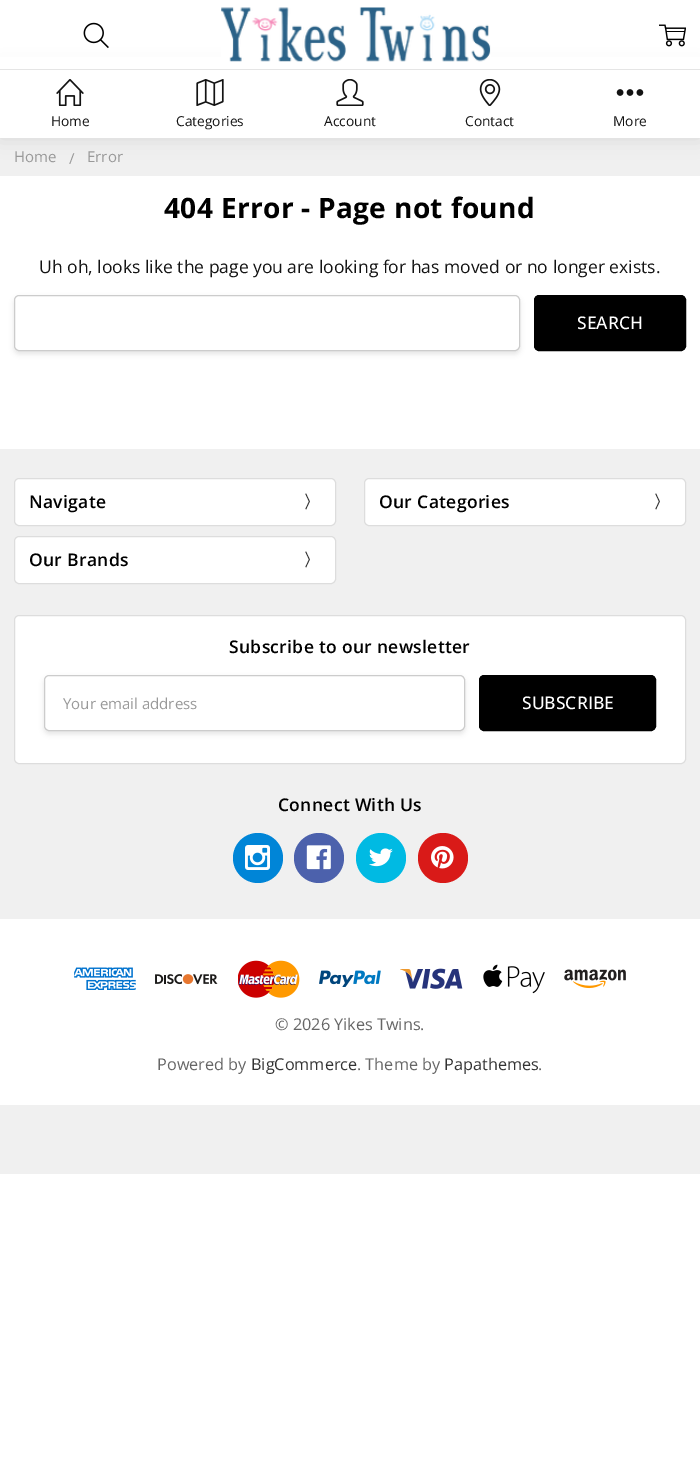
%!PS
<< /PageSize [700 1475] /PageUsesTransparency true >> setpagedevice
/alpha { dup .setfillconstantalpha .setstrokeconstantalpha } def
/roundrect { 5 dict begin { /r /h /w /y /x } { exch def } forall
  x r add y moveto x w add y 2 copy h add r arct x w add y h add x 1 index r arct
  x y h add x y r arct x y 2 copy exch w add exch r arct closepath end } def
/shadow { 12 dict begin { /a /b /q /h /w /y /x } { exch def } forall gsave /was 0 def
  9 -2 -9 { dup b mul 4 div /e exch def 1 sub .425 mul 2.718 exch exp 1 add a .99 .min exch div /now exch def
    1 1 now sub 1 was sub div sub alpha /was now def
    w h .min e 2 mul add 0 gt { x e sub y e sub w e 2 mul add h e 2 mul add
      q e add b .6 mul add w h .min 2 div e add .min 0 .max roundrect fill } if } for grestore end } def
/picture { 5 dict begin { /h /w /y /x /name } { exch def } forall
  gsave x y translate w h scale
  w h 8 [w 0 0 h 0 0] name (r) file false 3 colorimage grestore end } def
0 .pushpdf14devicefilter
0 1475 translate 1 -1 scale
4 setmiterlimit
1 setgray
0 0 700 1475 rectfill
0.941 setgray
0 138 700 38 rectfill
0 setgray
0 69 700 69 0 9.5 0.1 shadow
1 setgray
0 57 700 12 rectfill
0.898 setgray
0 69 700 1 rectfill
(img1.rgb) 221 7 270 55 picture
(img2.rgb) 83 22 26 27 picture
(img3.rgb) 659 24 27 23 picture
1 setgray
0 70 700 68 rectfill
(img4.rgb) 56 79 28 27 picture
/OpenSans-Regular [13.75 0 0 -13.75 0 0] selectfont
0.075 setgray
51 126 moveto (Home) show
(img5.rgb) 196 79 28 27 picture
176 126 moveto (Categories) show
(img6.rgb) 336 79 28 27 picture
324 126 moveto (Account) show
(img7.rgb) 479 79 22 27 picture
465 126 moveto (Contact) show
(img8.rgb) 616 89 28 7 picture
613 126 moveto (More) show
/OpenSans-Regular [15 0 0 -15 0 0] selectfont
0.6 setgray
14 162 moveto (Home) show
69 164 moveto (/) show
87 162 moveto (Error) show
/OpenSans-Bold [28.1 0 0 -28.1 0 0] selectfont
0 setgray
164 218 moveto 0.3 0 (404 Error - Page not found) ashow
/OpenSans-Regular [17.5 0 0 -17.5 0 0] selectfont
0.075 setgray
39 273 moveto (Uh oh, looks like the page you are looking for has moved or no longer exists.) show
0 setgray
14 298 506 56 5 2.5 0.1 shadow
1 setgray
14.5 295.5 505 55 4.5 roundrect gsave fill grestore
0.8 setgray
stroke
0 setgray
534.5 295.5 151 55 4.5 roundrect gsave fill grestore
stroke
/OpenSans-Medium [17.5 0 0 -17.5 0 0] selectfont
1 setgray
577 329 moveto (SEARCH) show
0.941 setgray
0 449 700 725 rectfill
1 setgray
14.5 478.5 321 47 4.5 roundrect gsave fill grestore
0.867 setgray
stroke
/OpenSans-SemiBold [17.5 0 0 -17.5 0 0] selectfont
0 setgray
29 508 moveto 0.3 0 (Navigate) ashow
/WenQuanYiZenHei-Bold [17.5 0 0 -17.5 0 0] selectfont
0.2 setgray
303 508 moveto 0.3 0 (〉) ashow
1 setgray
364.5 478.5 321 47 4.5 roundrect gsave fill grestore
0.867 setgray
stroke
/OpenSans-SemiBold [17.5 0 0 -17.5 0 0] selectfont
0 setgray
379 508 moveto 0.3 0 (Our Categories) ashow
/WenQuanYiZenHei-Bold [17.5 0 0 -17.5 0 0] selectfont
0.2 setgray
653 508 moveto 0.3 0 (〉) ashow
1 setgray
14.5 536.5 321 47 4.5 roundrect gsave fill grestore
0.867 setgray
stroke
/OpenSans-SemiBold [17.5 0 0 -17.5 0 0] selectfont
0 setgray
29 566 moveto 0.3 0 (Our Brands) ashow
/WenQuanYiZenHei-Bold [17.5 0 0 -17.5 0 0] selectfont
0.2 setgray
303 566 moveto 0.3 0 (〉) ashow
1 setgray
14.5 615.5 671 148 4.5 roundrect gsave fill grestore
0.867 setgray
stroke
/OpenSans-SemiBold [17.5 0 0 -17.5 0 0] selectfont
0 setgray
229 653 moveto 0.3 0 (Subscribe to our newsletter) ashow
44 678 421 56 5 2.5 0.1 shadow
1 setgray
44.5 675.5 420 55 4.5 roundrect gsave fill grestore
0.8 setgray
stroke
/OpenSans-Regular [15 0 0 -15 0 0] selectfont
0.6 setgray
63 709 moveto (Your email address) show
0 setgray
479.5 675.5 176 55 4.5 roundrect gsave fill grestore
stroke
/OpenSans-Medium [17.5 0 0 -17.5 0 0] selectfont
1 setgray
522 709 moveto (SUBSCRIBE) show
/OpenSans-SemiBold [17.5 0 0 -17.5 0 0] selectfont
0 setgray
278 811 moveto 0.3 0 (Connect With Us) ashow
0 0.522 0.843 setrgbcolor
newpath 258 858 25 0 360 arc closepath fill
(img9.rgb) 245 845 25 25 picture
0.298 0.38 0.675 setrgbcolor
newpath 319 858 25 0 360 arc closepath fill
(img10.rgb) 306 845 25 25 picture
0 0.729 0.89 setrgbcolor
newpath 381 858 25 0 360 arc closepath fill
(img11.rgb) 369 848 24 19 picture
0.851 0.102 0.094 setrgbcolor
newpath 443 858 25 0 360 arc closepath fill
(img12.rgb) 431 846 23 23 picture
1 setgray
0 919 700 186 rectfill
(img13.rgb) 74 967 62 23 picture
(img14.rgb) 155 974 63 11 picture
(img15.rgb) 238 960 62 38 picture
(img16.rgb) 319 970 62 17 picture
(img17.rgb) 400 968 63 21 picture
(img18.rgb) 483 964 62 30 picture
(img19.rgb) 564 969 62 20 picture
/OpenSans-Regular [16.25 0 0 -16.25 0 0] selectfont
0.4 setgray
275 1030 moveto (© 2026 Yikes Twins.) show
157 1070 moveto (Powered by) show
0.2 setgray
251 1070 moveto (BigCommerce) show
0.4 setgray
357 1070 moveto (. Theme by) show
0.2 setgray
444 1070 moveto (Papathemes) show
0.4 setgray
538 1070 moveto (.) show
.poppdf14devicefilter showpage
